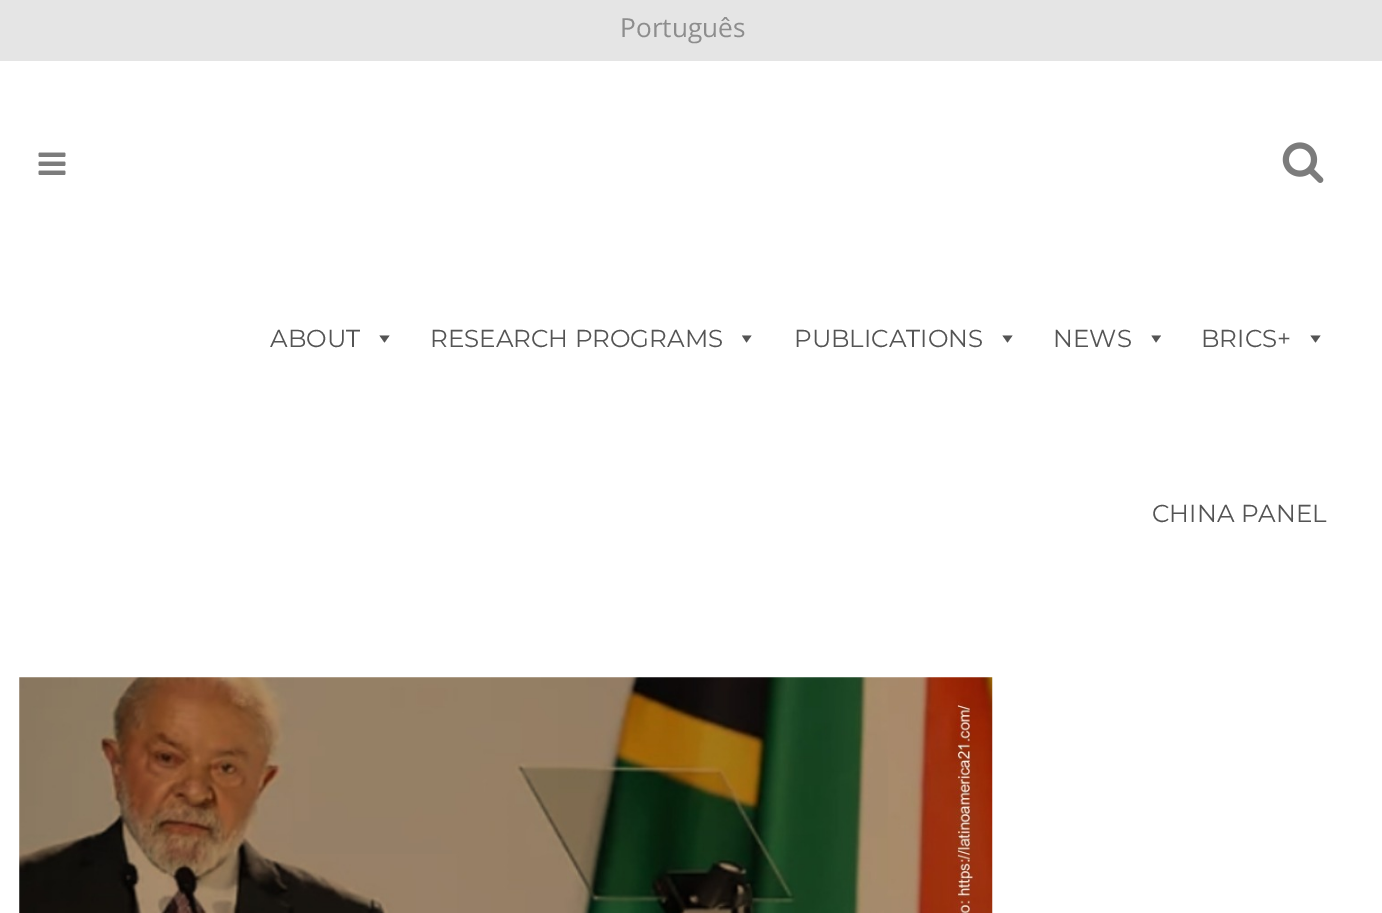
%!PS
<< /PageSize [1382 913] >> setpagedevice
/picture { 5 dict begin { /h /w /y /x /name } { exch def } forall
  gsave x y translate w h scale
  w h 8 [w 0 0 h 0 0] name (r) file false 3 colorimage grestore end } def
0 913 translate 1 -1 scale
4 setmiterlimit
1 setgray
0 0 1382 913 rectfill
0.898 setgray
0 0 1382 61 rectfill
/OpenSans-Regular [26.25 0 0 -26.25 0 0] selectfont
0.553 setgray
620 37 moveto (Português) show
(img1.rgb) 38 152 28 23 picture
(img2.rgb) 1282 142 42 41 picture
/Montserrat-Regular [24.5 0 0 -24.5 0 0] selectfont
0.329 setgray
270 347 moveto (ABOUT) show
newpath 389.5 335.5 moveto 384.5 342.5 lineto 379.5 335.5 lineto closepath fill
430 347 moveto (RESEARCH PROGRAMS) show
newpath 751.5 335.5 moveto 746.5 342.5 lineto 742 335.5 lineto closepath fill
794 347 moveto (PUBLICATIONS) show
newpath 1012.5 335.5 moveto 1007.5 342.5 lineto 1002.5 335.5 lineto closepath fill
1053 347 moveto (NEWS) show
newpath 1161 335.5 moveto 1156 342.5 lineto 1151.5 335.5 lineto closepath fill
1201 347 moveto (BRICS+) show
newpath 1320.5 335.5 moveto 1315.5 342.5 lineto 1310.5 335.5 lineto closepath fill
1152 522 moveto (CHINA PANEL) show
(img3.rgb) 19 677 974 236 picture
showpage
